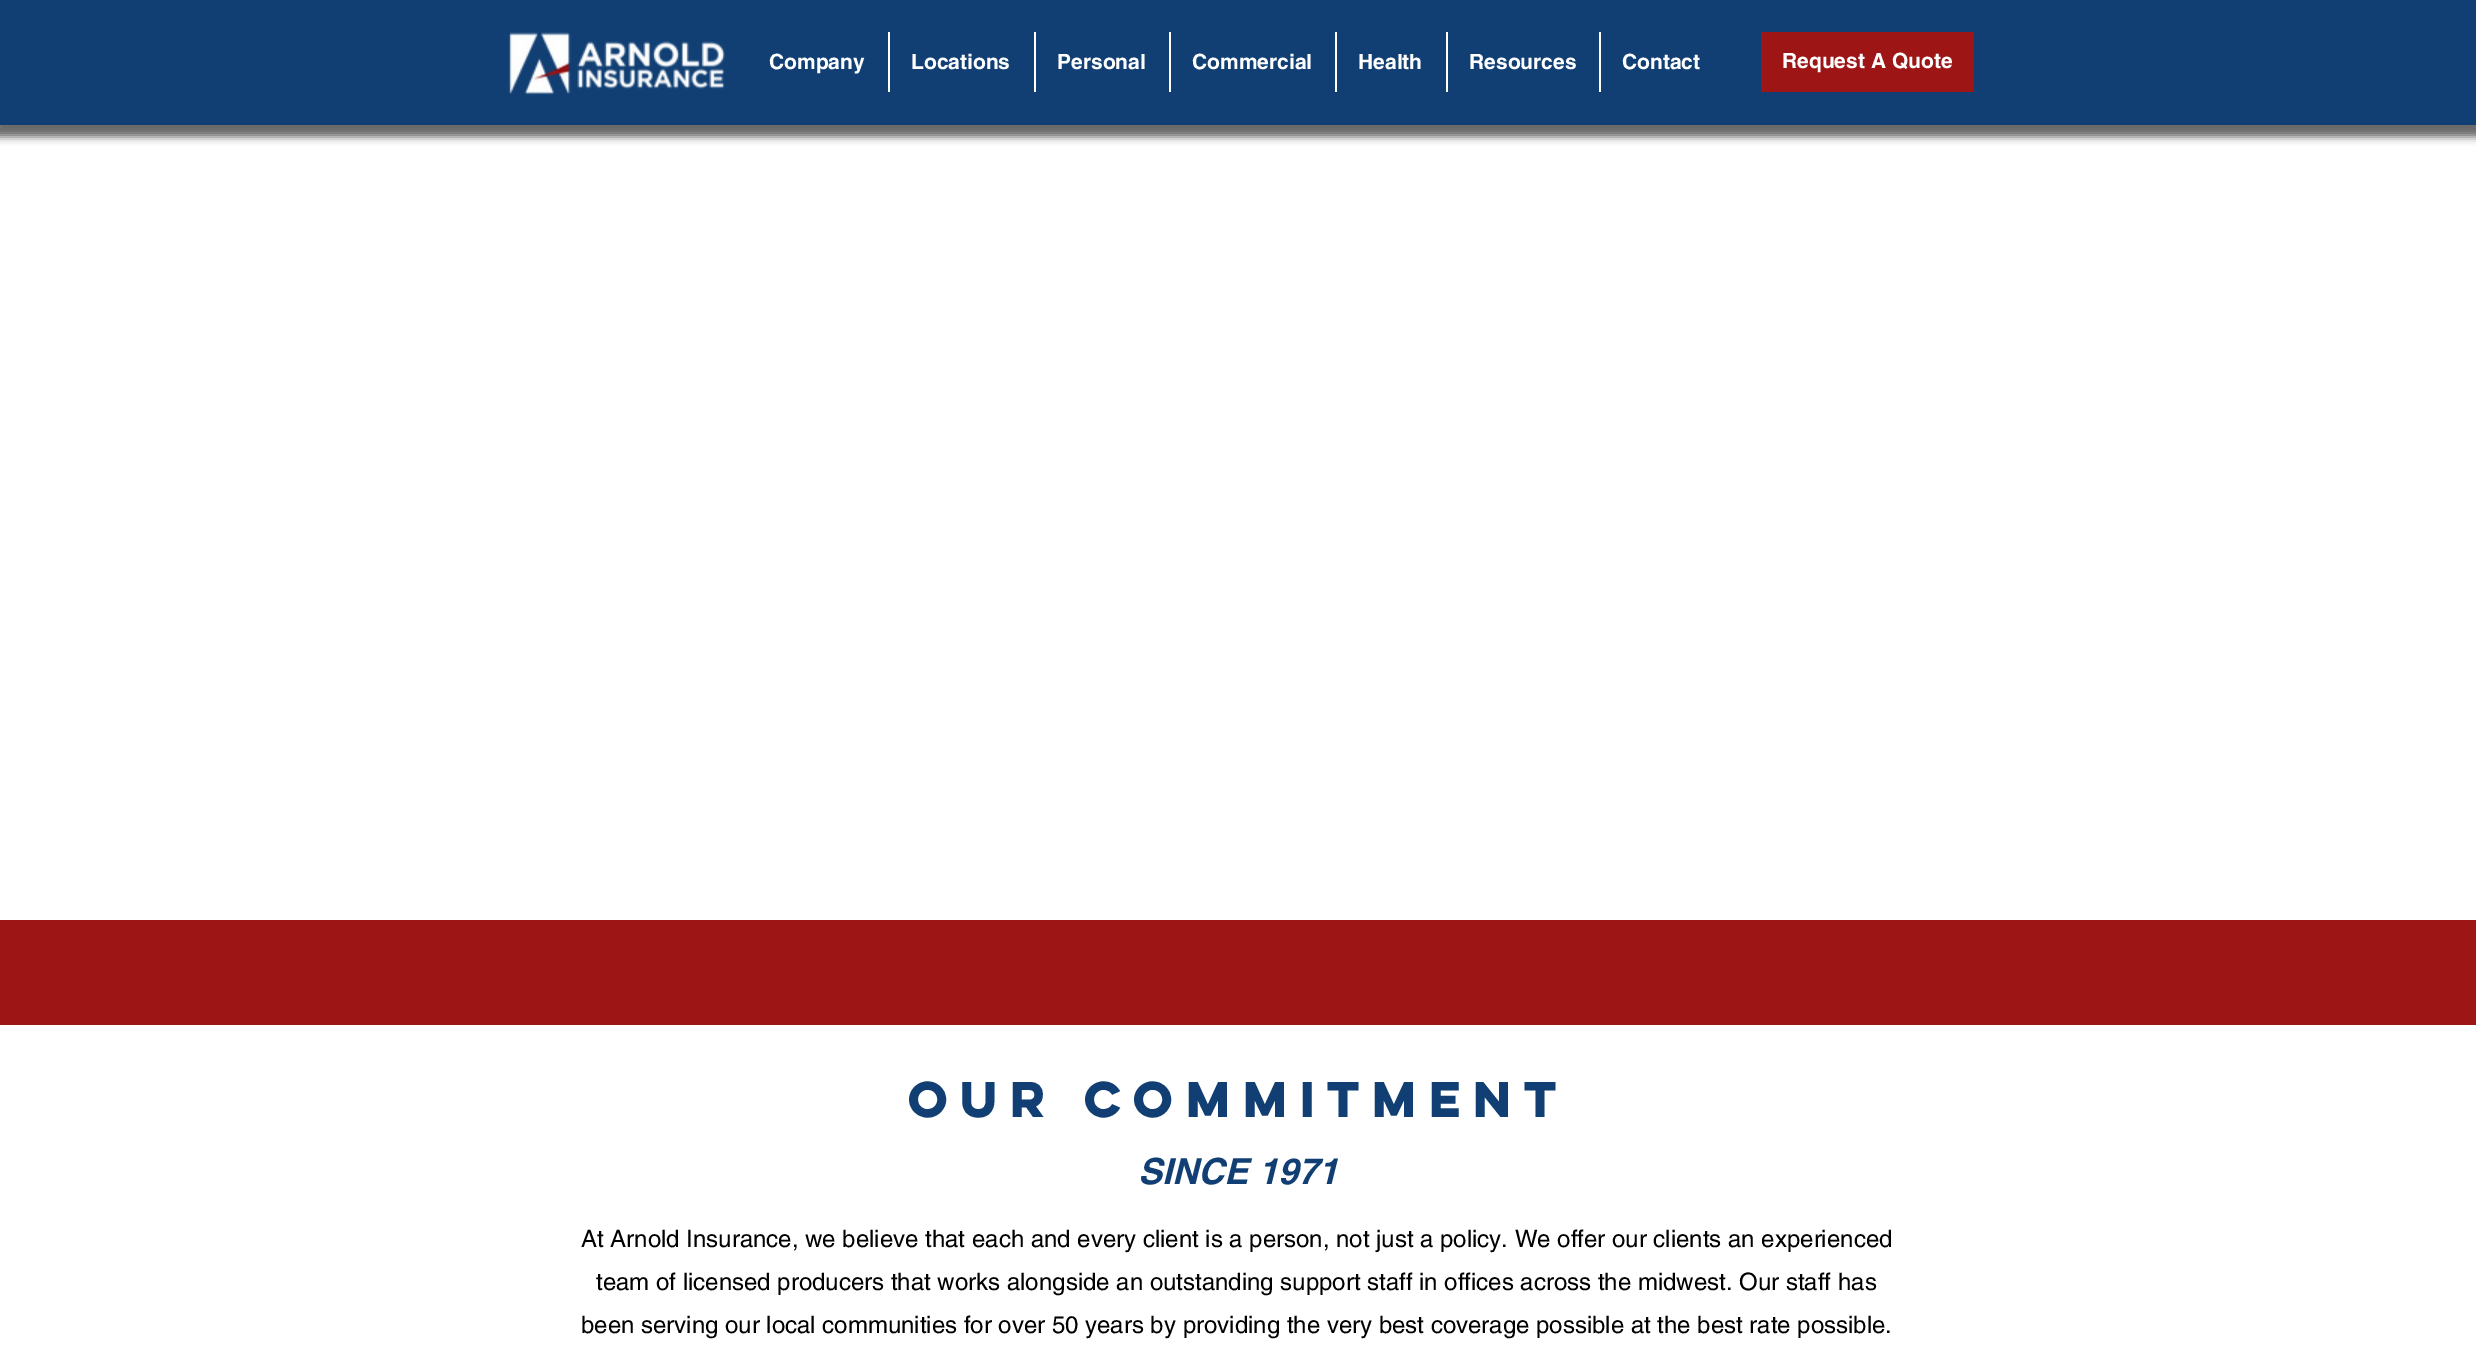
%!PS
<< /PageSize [2476 1354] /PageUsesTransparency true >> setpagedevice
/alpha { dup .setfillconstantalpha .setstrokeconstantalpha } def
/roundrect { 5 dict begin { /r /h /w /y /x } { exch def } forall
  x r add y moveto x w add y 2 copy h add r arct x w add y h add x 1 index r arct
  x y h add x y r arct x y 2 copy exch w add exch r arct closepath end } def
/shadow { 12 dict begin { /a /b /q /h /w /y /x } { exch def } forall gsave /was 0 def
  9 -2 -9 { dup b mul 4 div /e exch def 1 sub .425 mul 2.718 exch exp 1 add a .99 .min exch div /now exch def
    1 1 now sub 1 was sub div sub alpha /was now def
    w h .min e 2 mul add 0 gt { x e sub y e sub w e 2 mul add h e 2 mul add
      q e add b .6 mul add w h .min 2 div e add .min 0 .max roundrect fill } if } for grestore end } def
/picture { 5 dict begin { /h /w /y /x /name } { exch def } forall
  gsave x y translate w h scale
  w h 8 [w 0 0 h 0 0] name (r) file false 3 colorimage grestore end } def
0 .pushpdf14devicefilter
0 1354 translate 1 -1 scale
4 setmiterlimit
1 setgray
0 0 2476 1354 rectfill
0 setgray
-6 0 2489 137 0 4 0.6 shadow
0.067 0.247 0.451 setrgbcolor
0 0 2476 125 rectfill
(img1.rgb) 508 32 217 63 picture
/helvetica-Bold [21 0 0 -21 0 0] selectfont
1 setgray
769 69 moveto (Company) show
888 32 2 60 rectfill
911 69 moveto (Locations) show
1034 32 2 60 rectfill
1057 69 moveto (Personal) show
1169 32 2 60 rectfill
1192 69 moveto (Commercial) show
1335 32 2 60 rectfill
1358 69 moveto (Health) show
1446 32 2 60 rectfill
1469 69 moveto (Resources) show
1599 32 2 60 rectfill
1622 69 moveto (Contact) show
0.616 0.082 0.082 setrgbcolor
1761 32 213 60 rectfill
1 setgray
1782 68 moveto (Request A Quote) show
0.616 0.082 0.082 setrgbcolor
0 920 2476 105 rectfill
/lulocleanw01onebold-Bold [45 0 0 -45 0 0] selectfont
0.067 0.247 0.451 setrgbcolor
908 1117 moveto 2.75 0 (OUR COMMITMENT) ashow
/helvetica-BoldItalic [36 0 0 -36 0 0] selectfont
1138 1184 moveto (SINCE 1971) show
/helvetica-Regular [24 0 0 -24 0 0] selectfont
0 setgray
581 1247 moveto (At Arnold Insurance, we believe that each and every client is a person, not just a policy. We offer our clients an experienced) show
596 1290 moveto (team of licensed producers that works alongside an outstanding support staff in offices across the midwest. Our staff has) show
581 1333 moveto (been serving our local communities for over 50 years by providing the very best coverage possible at the best rate possible.) show
.poppdf14devicefilter showpage
